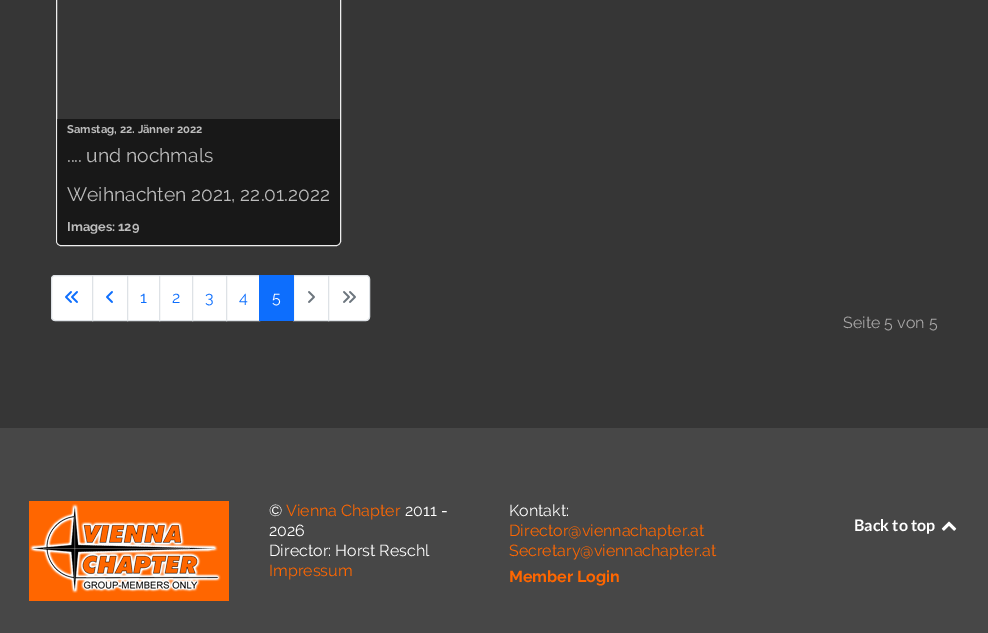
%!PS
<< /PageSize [988 633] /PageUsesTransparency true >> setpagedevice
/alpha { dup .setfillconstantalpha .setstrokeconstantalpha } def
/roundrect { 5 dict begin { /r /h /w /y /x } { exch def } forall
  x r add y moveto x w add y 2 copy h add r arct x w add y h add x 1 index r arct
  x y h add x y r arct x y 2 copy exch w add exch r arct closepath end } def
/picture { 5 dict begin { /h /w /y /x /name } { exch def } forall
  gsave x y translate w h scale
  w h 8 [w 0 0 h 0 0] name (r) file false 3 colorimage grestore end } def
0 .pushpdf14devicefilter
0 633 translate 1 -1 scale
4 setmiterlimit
0.212 setgray
0 0 988 633 rectfill
0.933 setgray
56.5 -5.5 284 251 4.5 roundrect stroke
0.56 alpha
0 setgray
newpath 57 119 moveto 340 119 lineto 340 241 lineto 340 243 338 245 336 245 curveto 61 245 lineto 59 245 57 243 57 241 curveto closepath fill
/Raleway-Bold [11.25 0 0 -11.25 0 0] selectfont
1 alpha
0.737 setgray
67 133 moveto (Samstag, 22. Jänner 2022) show
/Raleway-Regular [19.25 0 0 -19.25 0 0] selectfont
67 162 moveto (.... und nochmals) show
67 201 moveto (Weihnachten 2021, 22.01.2022) show
/Raleway-Bold [12.75 0 0 -12.75 0 0] selectfont
67 231 moveto (Images: 129) show
1 setgray
newpath 55 275.5 moveto 92.5 275.5 lineto 92.5 320.5 lineto 55 320.5 lineto 53 320.5 51.5 319 51.5 317 curveto 51.5 279 lineto 51.5 277 53 275.5 55 275.5 curveto closepath gsave fill grestore
0.871 0.886 0.902 setrgbcolor
stroke
(img1.rgb) 65 291 13 12 picture
1 setgray
newpath 92.5 275.5 moveto 127.5 275.5 lineto 127.5 320.5 lineto 92.5 320.5 lineto closepath gsave fill grestore
0.871 0.886 0.902 setrgbcolor
stroke
(img2.rgb) 106 291 7 12 picture
1 setgray
newpath 127.5 275.5 moveto 159.5 275.5 lineto 159.5 320.5 lineto 127.5 320.5 lineto closepath gsave fill grestore
0.871 0.886 0.902 setrgbcolor
stroke
/Raleway-Regular [16 0 0 -16 0 0] selectfont
0.051 0.431 0.992 setrgbcolor
140 303 moveto (1) show
1 setgray
newpath 159.5 275.5 moveto 192.5 275.5 lineto 192.5 320.5 lineto 159.5 320.5 lineto closepath gsave fill grestore
0.871 0.886 0.902 setrgbcolor
stroke
0.051 0.431 0.992 setrgbcolor
172 303 moveto (2) show
1 setgray
newpath 192.5 275.5 moveto 226.5 275.5 lineto 226.5 320.5 lineto 192.5 320.5 lineto closepath gsave fill grestore
0.871 0.886 0.902 setrgbcolor
stroke
0.051 0.431 0.992 setrgbcolor
205 303 moveto (3) show
1 setgray
newpath 226.5 275.5 moveto 259.5 275.5 lineto 259.5 320.5 lineto 226.5 320.5 lineto closepath gsave fill grestore
0.871 0.886 0.902 setrgbcolor
stroke
0.051 0.431 0.992 setrgbcolor
239 303 moveto (4) show
1 setgray
newpath 293.5 275.5 moveto 328.5 275.5 lineto 328.5 320.5 lineto 293.5 320.5 lineto closepath gsave fill grestore
0.871 0.886 0.902 setrgbcolor
stroke
0.051 0.431 0.992 setrgbcolor
259 275 35 46 rectfill
1 setgray
272 303 moveto (5) show
(img3.rgb) 308 291 7 12 picture
newpath 328.5 275.5 moveto 366 275.5 lineto 368 275.5 369.5 277 369.5 279 curveto 369.5 317 lineto 369.5 319 368 320.5 366 320.5 curveto 328.5 320.5 lineto closepath gsave fill grestore
0.871 0.886 0.902 setrgbcolor
stroke
(img4.rgb) 343 291 13 12 picture
0.659 0.655 0.655 setrgbcolor
843 328 moveto (Seite 5 von 5) show
0.278 setgray
0 428 988 205 rectfill
(img5.rgb) 29 501 200 100 picture
1 setgray
269 516 moveto (©) show
1 0.4 0 setrgbcolor
286 516 moveto (Vienna Chapter) show
1 setgray
405 516 moveto (2011 -) show
269 536 moveto (2026) show
269 556 moveto (Director: Horst Reschl) show
1 0.4 0 setrgbcolor
269 576 moveto (Impressum) show
1 setgray
509 516 moveto (Kontakt:) show
1 0.4 0 setrgbcolor
509 536 moveto (Director@viennachapter.at) show
509 556 moveto (Secretary@viennachapter.at) show
/Raleway-Bold [16 0 0 -16 0 0] selectfont
509 582 moveto (Member Login) show
/Lato-Bold [16 0 0 -16 0 0] selectfont
1 setgray
854 531 moveto (Back to top) show
(img6.rgb) 941 521 16 10 picture
.poppdf14devicefilter showpage
